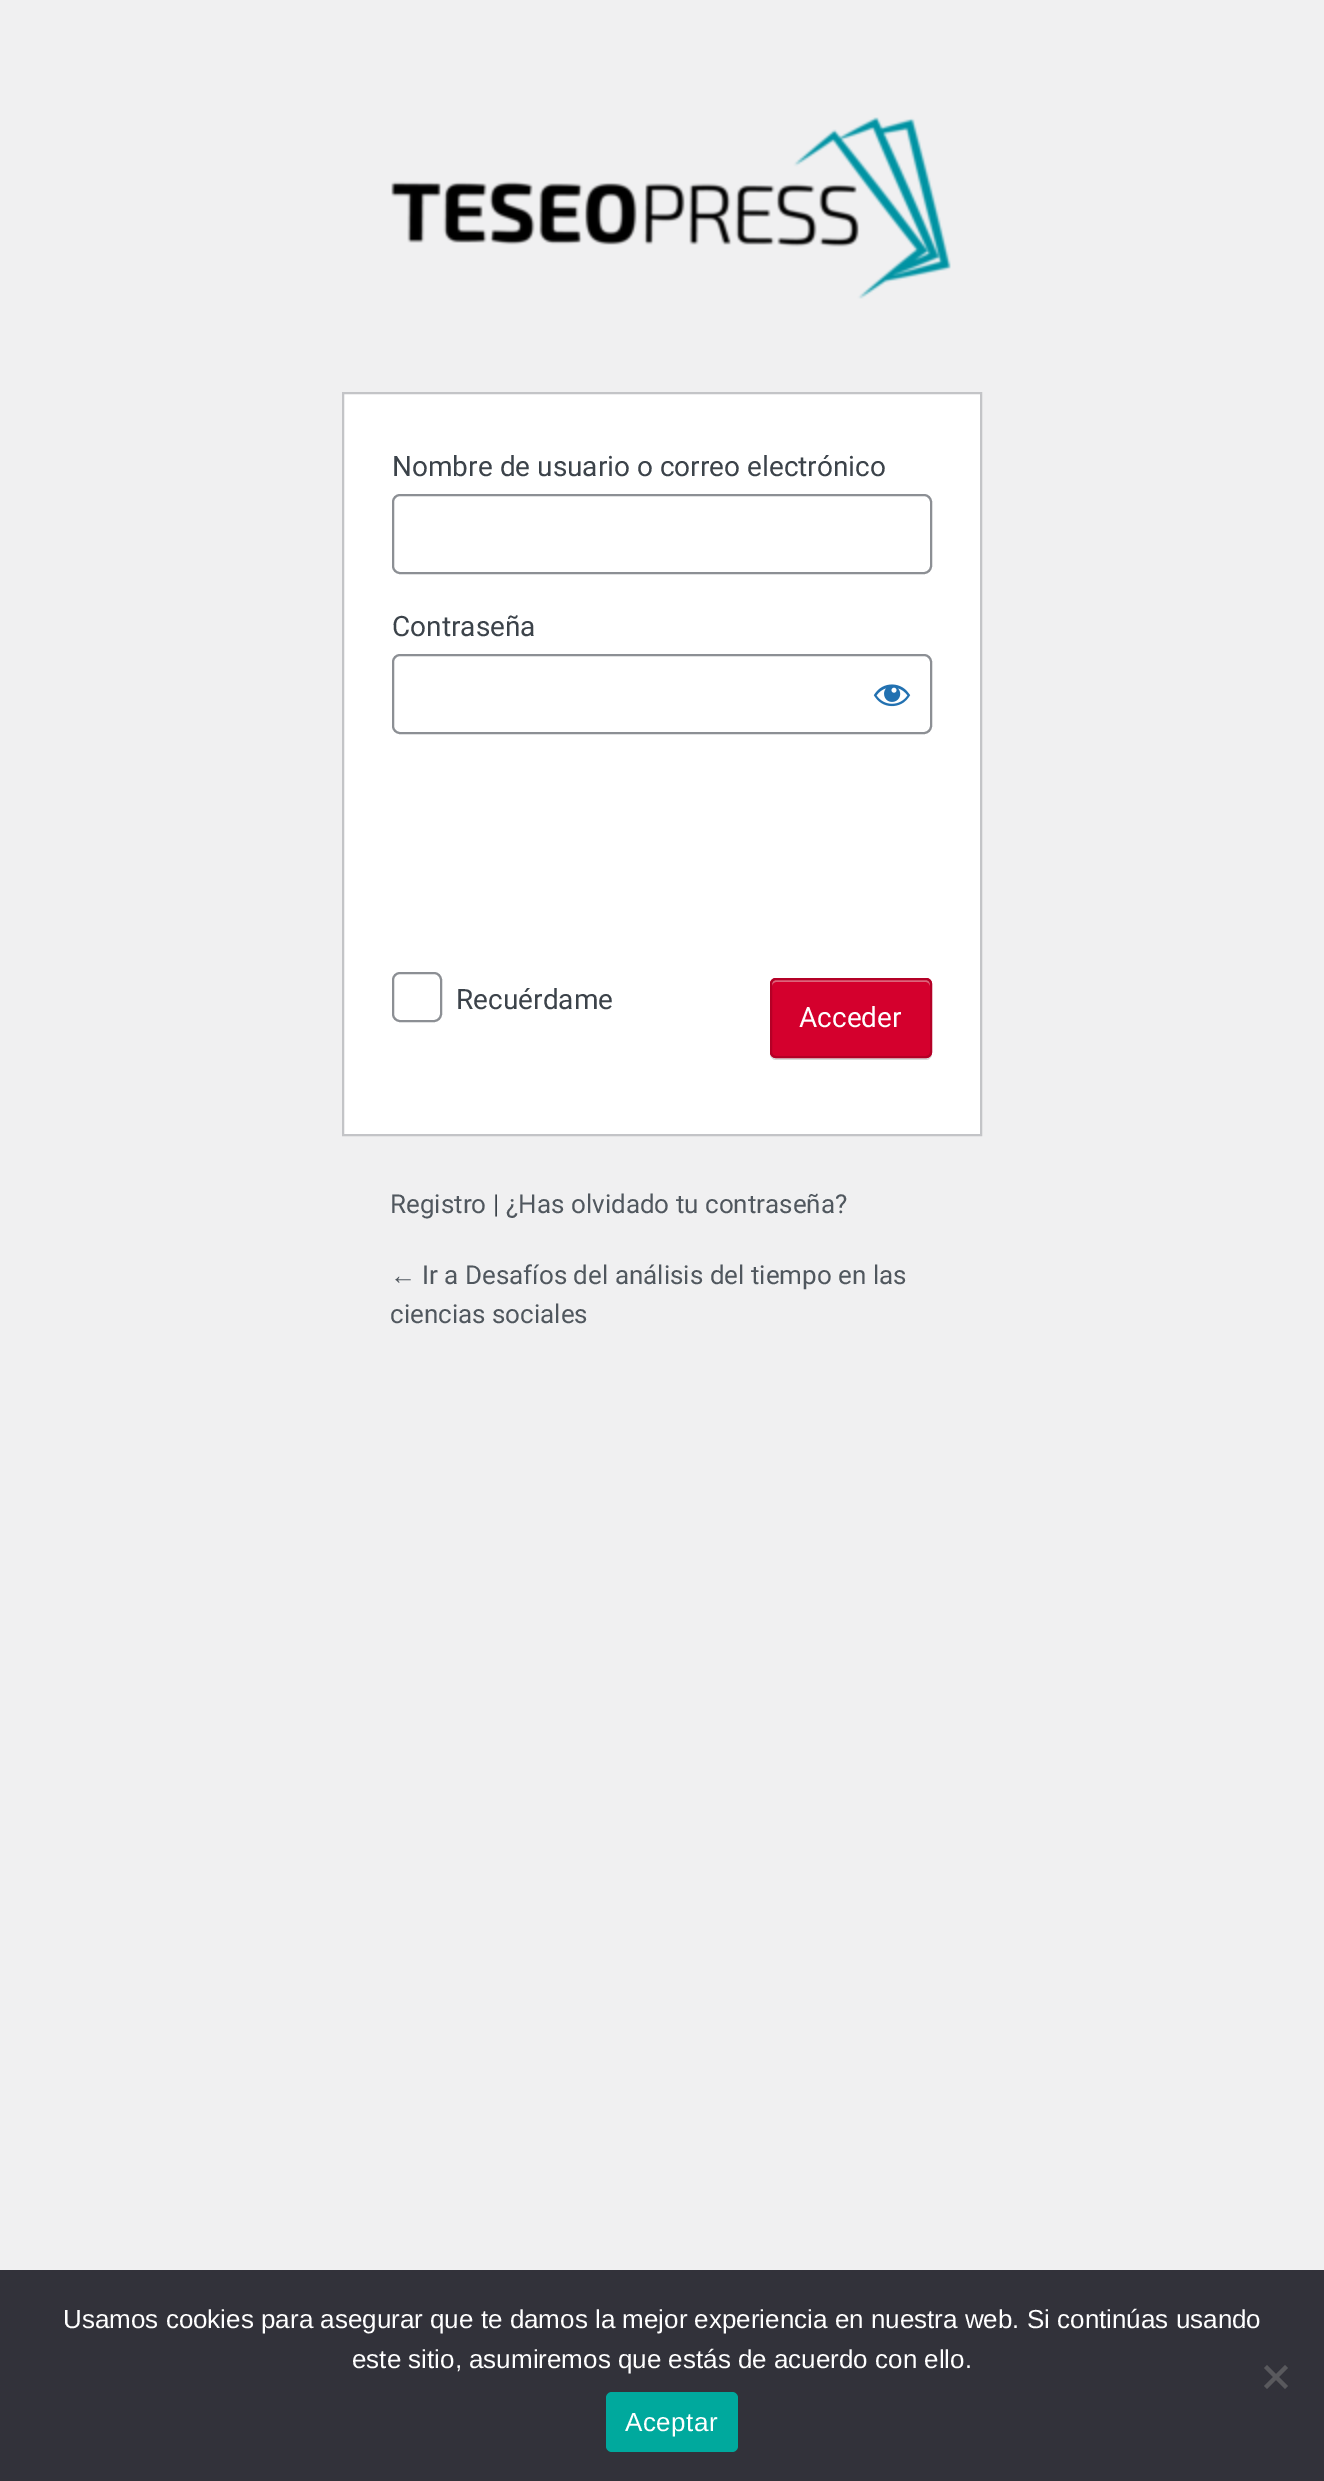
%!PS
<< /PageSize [1324 2481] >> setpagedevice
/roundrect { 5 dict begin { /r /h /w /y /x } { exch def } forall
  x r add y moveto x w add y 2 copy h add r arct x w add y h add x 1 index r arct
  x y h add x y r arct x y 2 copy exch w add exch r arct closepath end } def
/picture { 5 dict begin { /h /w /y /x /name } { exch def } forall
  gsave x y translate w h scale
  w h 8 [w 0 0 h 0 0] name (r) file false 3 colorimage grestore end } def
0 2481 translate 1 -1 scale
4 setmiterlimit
0.941 0.941 0.945 setrgbcolor
0 0 1324 2481 rectfill
(img1.rgb) 391 117 560 182 picture
1 setgray
newpath 343 393 moveto 981 393 lineto 981 1135 lineto 343 1135 lineto closepath gsave fill grestore
0.765 0.769 0.78 setrgbcolor
2 setlinewidth
stroke
/Roboto-Regular [28 0 0 -28 0 0] selectfont
0.235 0.263 0.29 setrgbcolor
392 476 moveto (Nombre de usuario o correo electrónico) show
0.549 0.561 0.58 setrgbcolor
393 495 538 78 7 roundrect stroke
0.235 0.263 0.29 setrgbcolor
392 636 moveto (Contraseña) show
0.549 0.561 0.58 setrgbcolor
393 655 538 78 7 roundrect stroke
(img2.rgb) 873 684 38 23 picture
393 973 48 48 7 roundrect stroke
0.235 0.263 0.29 setrgbcolor
456 1009 moveto (Recuérdame) show
0.851 setgray
newpath 770 1052 moveto 770 1054 lineto 770 1057 773 1060 776 1060 curveto 926 1060 lineto 929 1060 932 1057 932 1054 curveto 932 1052 lineto 932 1055 929 1058 926 1058 curveto 776 1058 lineto 773 1058 770 1055 770 1052 curveto closepath fill
0.831 0 0.176 setrgbcolor
770 978 162 80 6 roundrect fill
0.867 0.392 0.482 setrgbcolor
newpath 776 982 moveto 926 982 lineto 928 982 930 984 930 986 curveto 930 984 lineto 930 982 928 980 926 980 curveto 776 980 lineto 774 980 772 982 772 984 curveto 772 986 lineto 772 984 774 982 776 982 curveto closepath fill
0.706 0 0.149 setrgbcolor
771 979 160 78 5 roundrect stroke
1 setgray
799 1027 moveto (Acceder) show
/Roboto-Regular [26 0 0 -26 0 0] selectfont
0.314 0.341 0.369 setrgbcolor
390 1213 moveto (Registro) show
0.235 0.263 0.29 setrgbcolor
493 1213 moveto (|) show
0.314 0.341 0.369 setrgbcolor
506 1213 moveto (¿Has olvidado tu contraseña?) show
/LiberationSans-Regular [26 0 0 -26 0 0] selectfont
390 1284 moveto (←) show
/Roboto-Regular [26 0 0 -26 0 0] selectfont
422 1284 moveto (Ir a Desafíos del análisis del tiempo en las) show
390 1323 moveto (ciencias sociales) show
0.196 0.196 0.227 setrgbcolor
0 2270 1324 211 rectfill
/LiberationSans-Regular [26 0 0 -26 0 0] selectfont
1 setgray
63 2328 moveto (Usamos cookies para asegurar que te damos la mejor experiencia en nuestra web. Si continúas usando) show
352 2368 moveto (este sitio, asumiremos que estás de acuerdo con ello.) show
0.349 0.349 0.365 setrgbcolor
newpath 1285 2365 moveto 1288 2368 lineto 1267 2389 lineto 1264 2386 lineto closepath fill
newpath 1264 2368 moveto 1267 2365 lineto 1288 2386 lineto 1285 2389 lineto closepath fill
0 0.663 0.616 setrgbcolor
606 2392 132 60 6 roundrect fill
1 setgray
625 2431 moveto 0.5 0 (Aceptar) ashow
showpage
